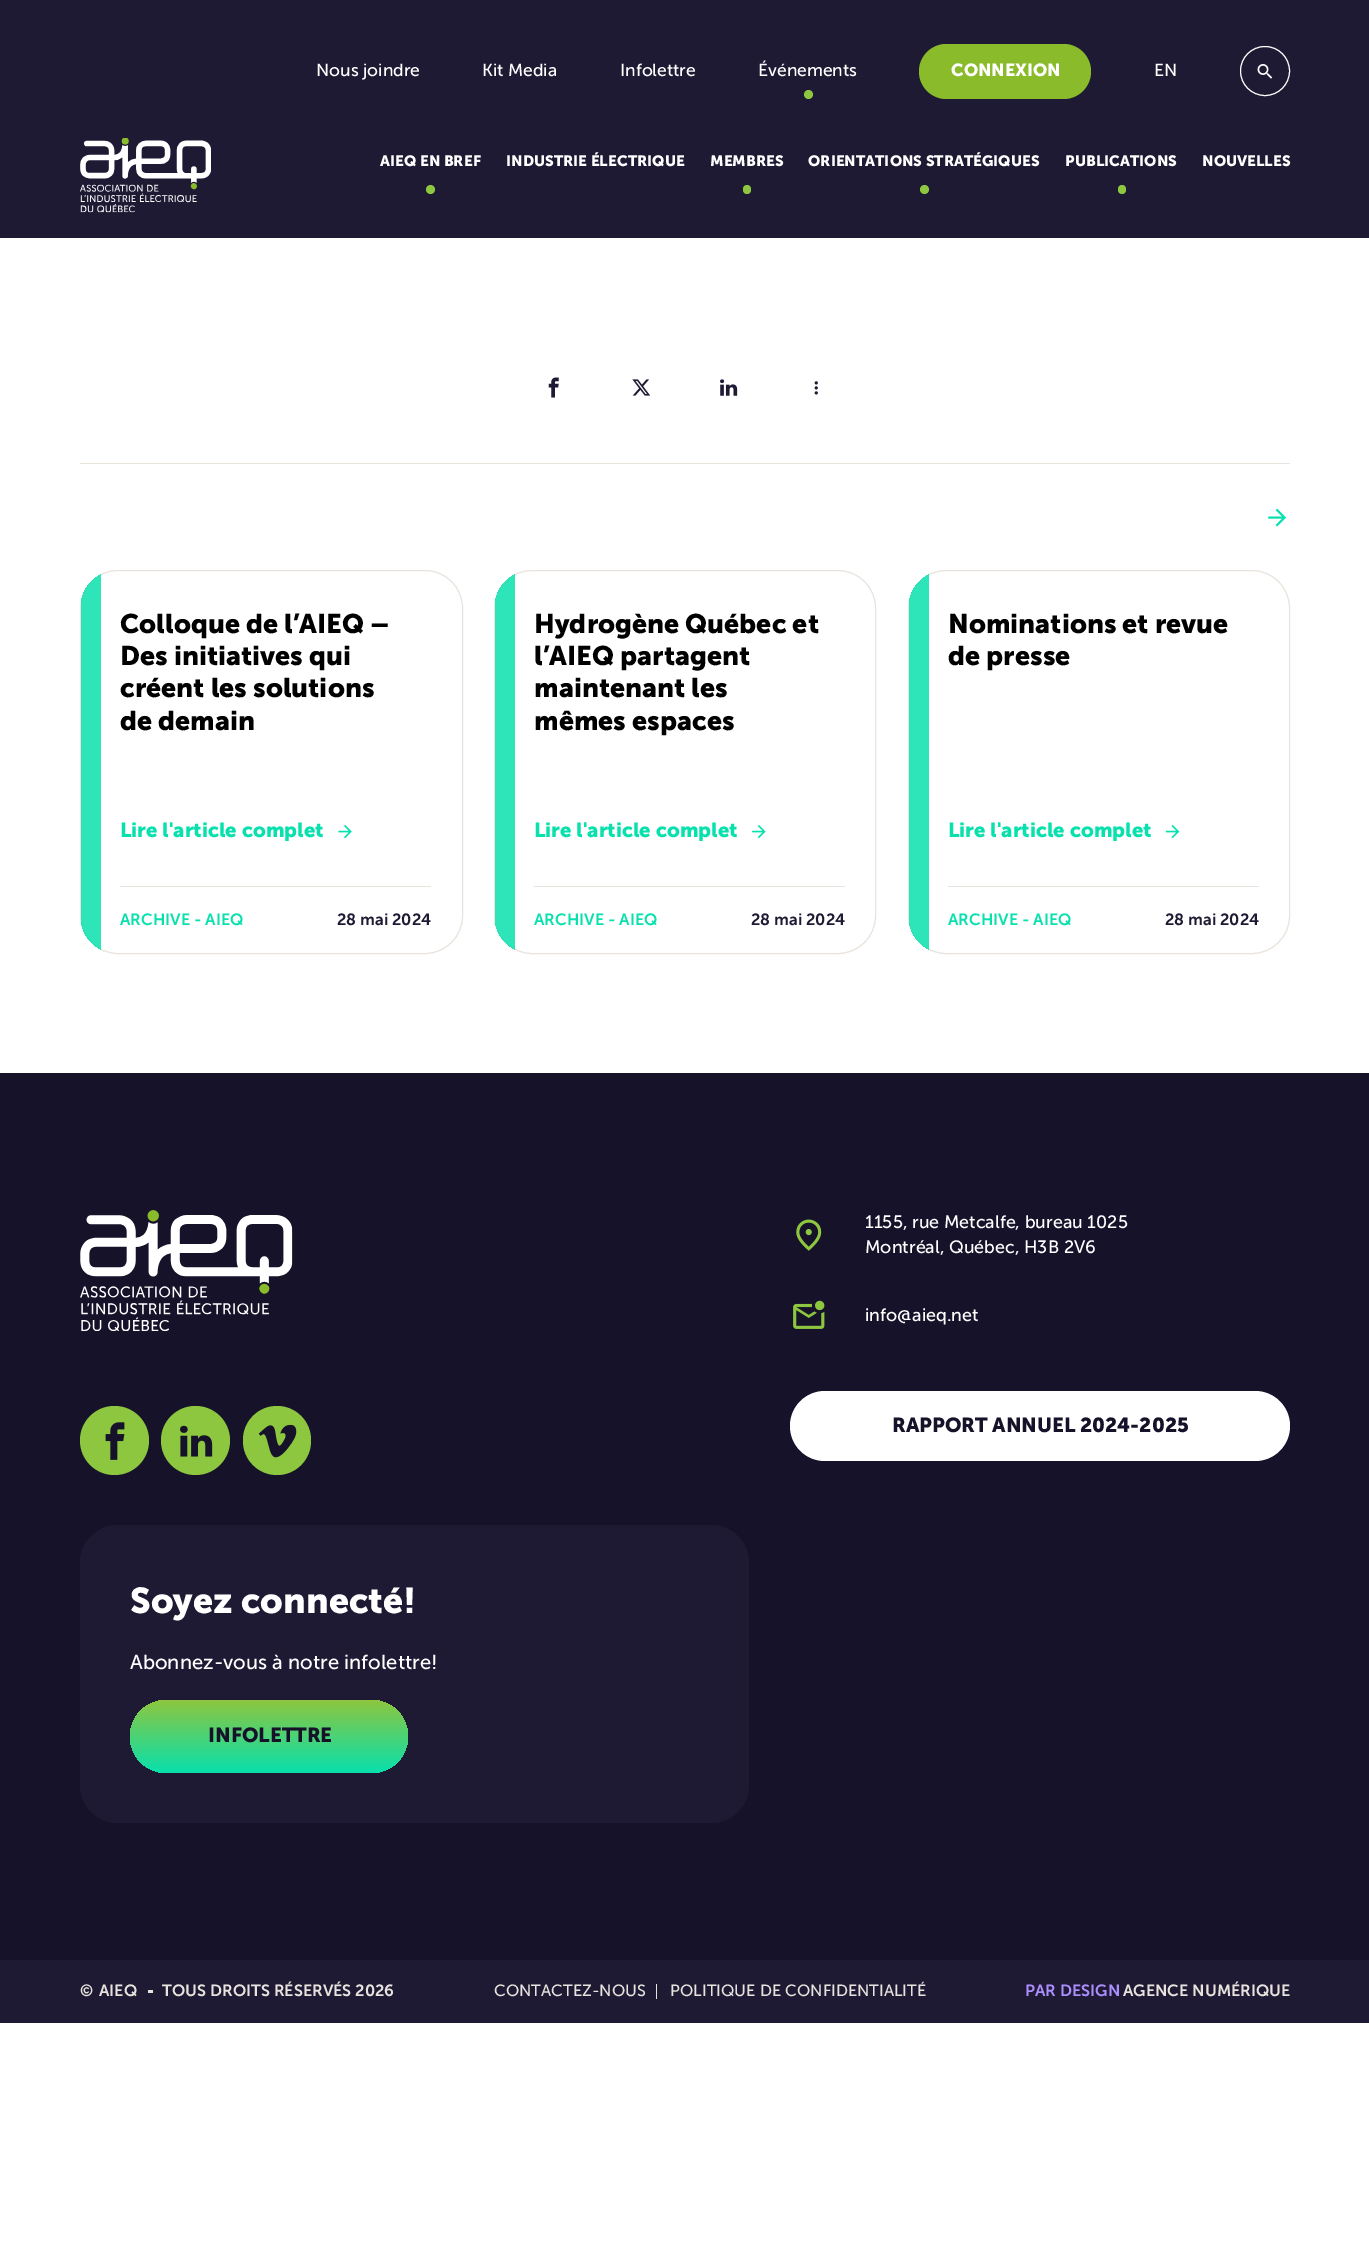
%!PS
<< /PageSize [1369 2260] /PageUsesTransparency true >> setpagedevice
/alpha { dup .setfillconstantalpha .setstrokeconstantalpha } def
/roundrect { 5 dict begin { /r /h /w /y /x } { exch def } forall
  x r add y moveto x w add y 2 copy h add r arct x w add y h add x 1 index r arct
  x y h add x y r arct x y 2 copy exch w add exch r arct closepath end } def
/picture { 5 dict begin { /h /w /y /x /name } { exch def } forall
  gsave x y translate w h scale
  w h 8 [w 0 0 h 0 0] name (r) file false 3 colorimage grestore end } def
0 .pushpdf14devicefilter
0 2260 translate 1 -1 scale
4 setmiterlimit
1 setgray
0 0 1369 2260 rectfill
0.118 0.102 0.204 setrgbcolor
0 0 1369 238 rectfill
/MuseoSans-Regular [17.5 0 0 -17.5 0 0] selectfont
1 setgray
316 76 moveto (Nous joindre) show
482 76 moveto (Kit Media) show
620 76 moveto (Infolettre) show
758 76 moveto (Événements) show
0.553 0.776 0.247 setrgbcolor
newpath 808.5 94.5 4.5 0 360 arc closepath fill
0.541 0.733 0.165 setrgbcolor
919 44 172 55 27.5 roundrect fill
/MuseoSans-Bold [17.5 0 0 -17.5 0 0] selectfont
1 setgray
951 76 moveto (CONNEXION) show
/MuseoSans-Regular [17.5 0 0 -17.5 0 0] selectfont
1154 76 moveto (EN) show
newpath 1265 71 24.5 0 360 arc closepath stroke
(img1.rgb) 1257 64 16 15 picture
(img2.rgb) 80 138 131 75 picture
/MuseoSans-Bold [15 0 0 -15 0 0] selectfont
380 166 moveto (AIEQ EN BREF) show
0.553 0.776 0.247 setrgbcolor
newpath 430.5 189.5 4.5 0 360 arc closepath fill
1 setgray
506 166 moveto (INDUSTRIE ÉLECTRIQUE) show
710 166 moveto (MEMBRES) show
0.553 0.776 0.247 setrgbcolor
743 185 8 9 4 roundrect fill
1 setgray
808 166 moveto (ORIENTATIONS STRATÉGIQUES) show
0.553 0.776 0.247 setrgbcolor
newpath 924.5 189.5 4.5 0 360 arc closepath fill
1 setgray
1065 166 moveto (PUBLICATIONS) show
0.553 0.776 0.247 setrgbcolor
1118 185 8 9 4 roundrect fill
1 setgray
1202 166 moveto (NOUVELLES) show
(img3.rgb) 548 377 11 21 picture
(img4.rgb) 632 379 19 17 picture
(img5.rgb) 720 379 18 17 picture
(img6.rgb) 814 381 4 14 picture
0.91 0.89 0.863 setrgbcolor
80 463 1210 1 rectfill
(img7.rgb) 1268 508 18 19 picture
80.5 570.5 382 383 37.5 roundrect stroke
(img8.rgb) 81 575 20 369 picture
gsave
81 571 380 382 36 roundrect clip newpath
0.85 alpha
0.031 0.878 0.678 setrgbcolor
81 574 20 376 rectfill
grestore
/MuseoSans-Bold [26.8 0 0 -26.8 0 0] selectfont
0 setgray
120 633 moveto (Colloque de l’AIEQ –) show
120 665 moveto (Des initiatives qui) show
120 697 moveto (créent les solutions) show
120 730 moveto (de demain) show
/MuseoSans-Bold [20.25 0 0 -20.25 0 0] selectfont
0.031 0.878 0.678 setrgbcolor
120 837 moveto (Lire l'article complet) show
(img9.rgb) 338 824 14 15 picture
0.91 0.89 0.863 setrgbcolor
120 886 311 1 rectfill
/MuseoSans-SemiBold [16.25 0 0 -16.25 0 0] selectfont
0.031 0.878 0.678 setrgbcolor
120 925 moveto (ARCHIVE - AIEQ) show
0.118 0.102 0.204 setrgbcolor
337 925 moveto (28 mai 2024) show
0.91 0.89 0.863 setrgbcolor
494.5 570.5 381 383 37.5 roundrect stroke
(img10.rgb) 495 575 20 374 picture
gsave
495 571 380 382 36 roundrect clip newpath
0.85 alpha
0.031 0.878 0.678 setrgbcolor
495 574 20 376 rectfill
grestore
/MuseoSans-Bold [26.8 0 0 -26.8 0 0] selectfont
0 setgray
534 633 moveto (Hydrogène Québec et) show
534 665 moveto (l’AIEQ partagent) show
534 697 moveto (maintenant les) show
534 730 moveto (mêmes espaces) show
/MuseoSans-Bold [20.25 0 0 -20.25 0 0] selectfont
0.031 0.878 0.678 setrgbcolor
534 837 moveto (Lire l'article complet) show
(img11.rgb) 752 824 14 15 picture
0.91 0.89 0.863 setrgbcolor
534 886 311 1 rectfill
/MuseoSans-SemiBold [16.25 0 0 -16.25 0 0] selectfont
0.031 0.878 0.678 setrgbcolor
534 925 moveto (ARCHIVE - AIEQ) show
0.118 0.102 0.204 setrgbcolor
751 925 moveto (28 mai 2024) show
0.91 0.89 0.863 setrgbcolor
908.5 570.5 381 383 37.5 roundrect stroke
(img12.rgb) 909 575 20 374 picture
gsave
909 571 380 382 36 roundrect clip newpath
0.85 alpha
0.031 0.878 0.678 setrgbcolor
909 574 20 376 rectfill
grestore
/MuseoSans-Bold [26.8 0 0 -26.8 0 0] selectfont
0 setgray
948 633 moveto (Nominations et revue) show
948 665 moveto (de presse) show
/MuseoSans-Bold [20.25 0 0 -20.25 0 0] selectfont
0.031 0.878 0.678 setrgbcolor
948 837 moveto (Lire l'article complet) show
(img13.rgb) 1165 824 15 15 picture
0.91 0.89 0.863 setrgbcolor
948 886 311 1 rectfill
/MuseoSans-SemiBold [16.25 0 0 -16.25 0 0] selectfont
0.031 0.878 0.678 setrgbcolor
948 925 moveto (ARCHIVE - AIEQ) show
0.118 0.102 0.204 setrgbcolor
1165 925 moveto (28 mai 2024) show
0.086 0.071 0.161 setrgbcolor
0 1073 1369 887 rectfill
(img14.rgb) 80 1210 213 121 picture
0.553 0.776 0.247 setrgbcolor
newpath 114.5 1440.5 34.5 0 360 arc closepath fill
(img15.rgb) 105 1422 20 38 picture
newpath 195.5 1440.5 34.5 0 360 arc closepath fill
(img16.rgb) 180 1425 33 32 picture
243 1406 68 69 34 roundrect fill
(img17.rgb) 258 1424 39 34 picture
(img18.rgb) 796 1219 26 32 picture
/MuseoSans-Regular [17.9 0 0 -17.9 0 0] selectfont
1 setgray
865 1228 moveto (1155, rue Metcalfe, bureau 1025) show
865 1253 moveto (Montréal, Québec, H3B 2V6) show
(img19.rgb) 793 1300 32 29 picture
865 1321 moveto (info@aieq.net) show
790 1391 500 70 35 roundrect fill
/MuseoSans-Bold [20.25 0 0 -20.25 0 0] selectfont
0.086 0.071 0.161 setrgbcolor
892 1432 moveto (RAPPORT ANNUEL 2024-2025) show
0.118 0.102 0.204 setrgbcolor
80 1525 669 298 38 roundrect fill
/MuseoSans-Bold [35.75 0 0 -35.75 0 0] selectfont
1 setgray
130 1613 moveto (Soyez connecté!) show
/MuseoSans-Regular [20.25 0 0 -20.25 0 0] selectfont
130 1669 moveto (Abonnez-vous à notre infolettre!) show
gsave 130 1700 278 73 36.5 roundrect clip newpath
<< /ShadingType 2 /ColorSpace /DeviceRGB /Coords [269 1700 269 1773] /Extend [true true] /Function << /FunctionType 2 /Domain [0 1] /C0 [0.553 0.776 0.247] /C1 [0.031 0.878 0.678] /N 1 >> >> shfill grestore
/MuseoSans-Bold [20.25 0 0 -20.25 0 0] selectfont
0.086 0.071 0.161 setrgbcolor
208 1742 moveto (INFOLETTRE) show
0.118 0.102 0.204 setrgbcolor
0 1960 1369 63 rectfill
/MuseoSans-SemiBold [16.25 0 0 -16.25 0 0] selectfont
0.91 0.89 0.863 setrgbcolor
80 1996 moveto (©) show
99 1996 moveto (AIEQ) show
148 1990 5 3 rectfill
162 1996 moveto (TOUS DROITS RÉSERVÉS 2026) show
/MuseoSans-Regular [16.25 0 0 -16.25 0 0] selectfont
494 1996 moveto (CONTACTEZ-NOUS) show
656 1984 1 15 rectfill
670 1996 moveto (POLITIQUE DE CONFIDENTIALITÉ) show
/MuseoSans-SemiBold [16.25 0 0 -16.25 0 0] selectfont
0.671 0.561 1 setrgbcolor
1025 1996 moveto (PAR DESIGN) show
0.91 0.89 0.863 setrgbcolor
1123 1996 moveto (AGENCE NUMÉRIQUE) show
.poppdf14devicefilter showpage
